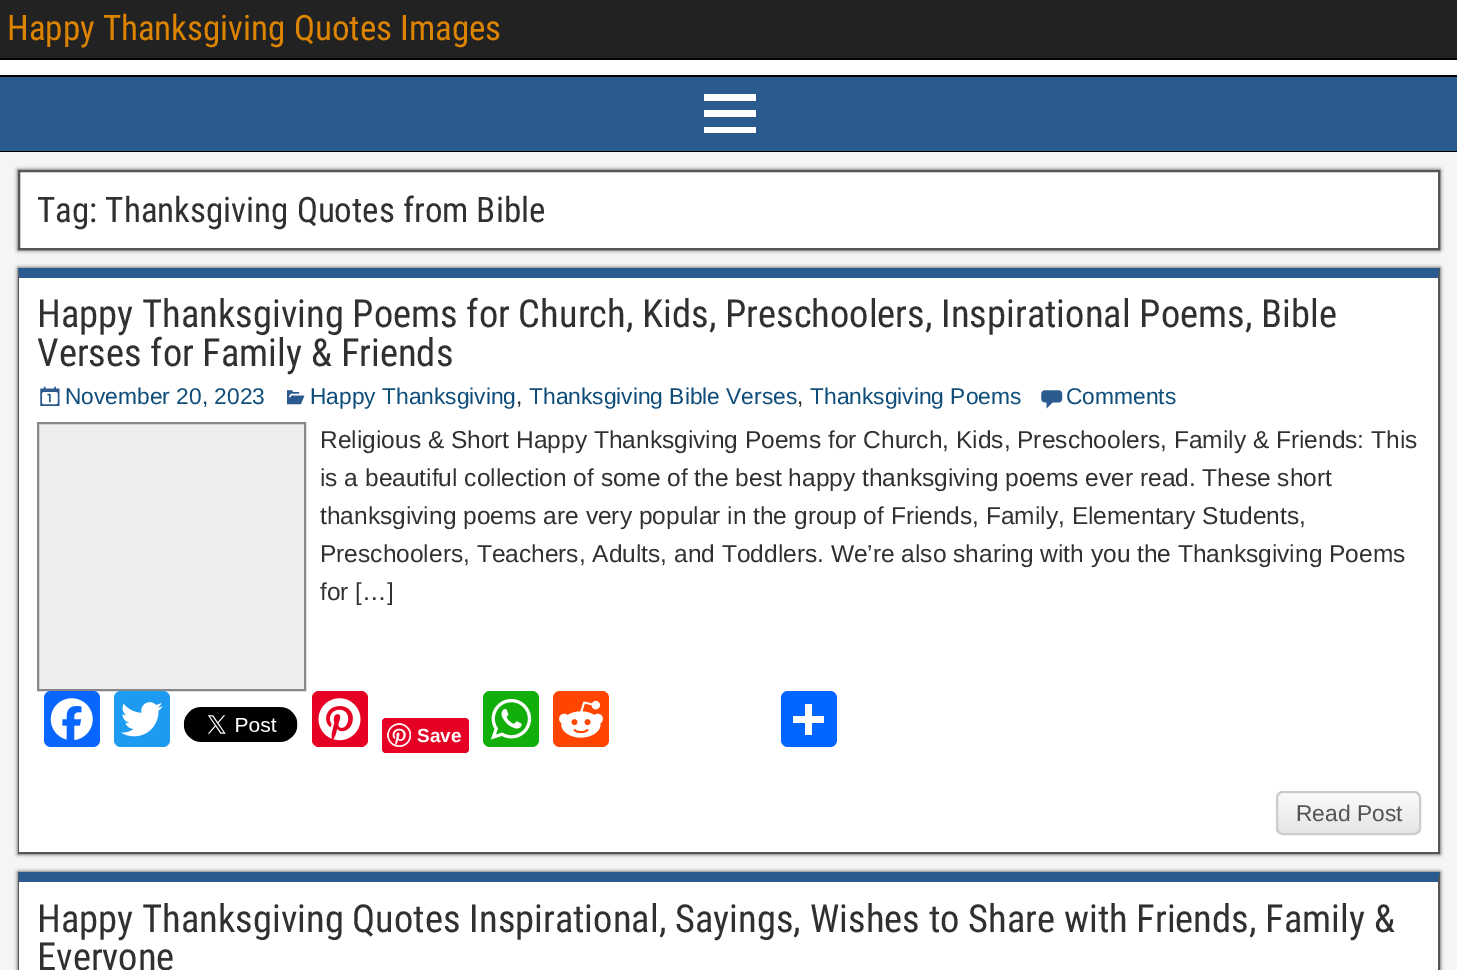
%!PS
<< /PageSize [1457 970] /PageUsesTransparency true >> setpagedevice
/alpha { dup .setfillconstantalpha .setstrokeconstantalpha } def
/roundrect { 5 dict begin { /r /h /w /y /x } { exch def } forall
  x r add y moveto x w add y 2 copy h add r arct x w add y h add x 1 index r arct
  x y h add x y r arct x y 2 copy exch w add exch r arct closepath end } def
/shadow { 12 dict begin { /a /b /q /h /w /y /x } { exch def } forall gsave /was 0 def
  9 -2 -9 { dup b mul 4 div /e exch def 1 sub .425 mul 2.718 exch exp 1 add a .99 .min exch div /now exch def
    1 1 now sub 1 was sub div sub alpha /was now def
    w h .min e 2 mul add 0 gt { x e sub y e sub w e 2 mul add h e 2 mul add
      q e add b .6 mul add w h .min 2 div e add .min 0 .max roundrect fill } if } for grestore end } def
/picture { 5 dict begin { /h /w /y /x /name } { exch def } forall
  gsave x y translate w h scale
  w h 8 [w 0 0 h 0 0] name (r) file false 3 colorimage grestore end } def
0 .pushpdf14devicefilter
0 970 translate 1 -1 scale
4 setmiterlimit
0.133 setgray
0 0 1457 970 rectfill
0 setgray
0 58 1457 2 rectfill
/RobotoCondensed-Regular [35 0 0 -35 0 0] selectfont
0.863 0.514 0 setrgbcolor
7 40 moveto (Happy Thanksgiving Quotes Images) show
1 setgray
0 60 1457 15 rectfill
0 setgray
0 75 1457 2 rectfill
0.165 0.353 0.557 setrgbcolor
0 77 1457 74 rectfill
0 setgray
0 151 1457 1 rectfill
1 setgray
newpath 704 133 moveto 704 127 lineto 756 127 lineto 756 133 lineto closepath 704 94 moveto 756 94 lineto 756 101 lineto 704 101 lineto closepath 704 117 moveto 704 110 lineto 756 110 lineto 756 117 lineto closepath fill
0.961 setgray
0 152 1457 818 rectfill
0.2 setgray
18 170 1422 80 0 2 1 shadow
1 setgray
newpath 19 171 moveto 1439 171 lineto 1439 249 lineto 19 249 lineto closepath gsave fill grestore
0.333 setgray
2 setlinewidth
stroke
0.188 setgray
37 222 moveto (Tag: Thanksgiving Quotes from Bible) show
0.2 setgray
18 268 1422 586 0 2 1 shadow
1 setgray
19 278 1419 574 rectfill
0.165 0.353 0.557 setrgbcolor
newpath 18 268 moveto 1440 268 lineto 1438 278 lineto 19 278 lineto closepath fill
0.333 setgray
newpath 1440 268 moveto 1440 854 lineto 1438 852 lineto 1438 278 lineto closepath fill
18 852 1422 2 rectfill
newpath 18 854 moveto 18 268 lineto 19 278 lineto 19 852 lineto closepath fill
/RobotoCondensed-Regular [38.5 0 0 -38.5 0 0] selectfont
0.188 setgray
37 327 moveto (Happy Thanksgiving Poems for Church, Kids, Preschoolers, Inspirational Poems, Bible) show
37 366 moveto (Verses for Family & Friends) show
(img1.rgb) 40 386 20 20 picture
/LiberationSans-Regular [22.75 0 0 -22.75 0 0] selectfont
0.055 0.302 0.478 setrgbcolor
65 404 moveto (November 20, 2023) show
(img2.rgb) 287 390 18 15 picture
310 404 moveto (Happy Thanksgiving) show
0.188 setgray
516 404 moveto (,) show
0.055 0.302 0.478 setrgbcolor
529 404 moveto (Thanksgiving Bible Verses) show
0.188 setgray
797 404 moveto (,) show
0.055 0.302 0.478 setrgbcolor
810 404 moveto (Thanksgiving Poems) show
(img3.rgb) 1041 390 22 19 picture
1066 404 moveto (Comments) show
0.933 setgray
newpath 38 423 moveto 305 423 lineto 305 690 lineto 38 690 lineto closepath gsave fill grestore
0.533 setgray
stroke
/Arimo-Regular [24.5 0 0 -24.5 0 0] selectfont
0.188 setgray
320 448 moveto (Religious & Short Happy Thanksgiving Poems for Church, Kids, Preschoolers, Family & Friends: This) show
320 486 moveto (is a beautiful collection of some of the best happy thanksgiving poems ever read. These short) show
320 524 moveto (thanksgiving poems are very popular in the group of Friends, Family, Elementary Students,) show
320 562 moveto (Preschoolers, Teachers, Adults, and Toddlers. We’re also sharing with you the Thanksgiving Poems) show
320 600 moveto (for […]) show
0.031 0.4 1 setrgbcolor
44 691 56 56 7 roundrect fill
(img4.rgb) 50 698 43 43 picture
0.114 0.608 0.941 setrgbcolor
114 691 56 56 7 roundrect fill
(img5.rgb) 121 702 42 35 picture
(img6.rgb) 183 707 115 35 picture
0.902 0 0.137 setrgbcolor
312 691 56 56 7 roundrect fill
(img7.rgb) 318 698 43 43 picture
382 718 87 35 4 roundrect fill
(img8.rgb) 387 723 24 24 picture
/LiberationSans-Bold [19 0 0 -19 0 0] selectfont
1 setgray
417 742 moveto (Save) show
0.071 0.686 0.039 setrgbcolor
483 691 56 56 7 roundrect fill
(img9.rgb) 490 699 42 41 picture
1 0.271 0 setrgbcolor
553 691 56 56 7 roundrect fill
(img10.rgb) 559 700 44 38 picture
0.004 0.4 1 setrgbcolor
781 691 56 56 7 roundrect fill
1 setgray
805 704 7 31 rectfill
793 716 31 7 rectfill
gsave
1276 791 145 44 7 roundrect clip newpath
gsave newpath 1276 793 moveto 1421 793 lineto 1421 833 lineto 1276 833 lineto closepath clip newpath
<< /ShadingType 2 /ColorSpace /DeviceRGB /Coords [1348 793 1348 833] /Extend [true true] /Function << /FunctionType 2 /Domain [0 1] /C0 [0.984 0.984 0.984] /C1 [0.898 0.898 0.898] /N 1 >> >> shfill grestore
grestore
0.8 setgray
1277 792 143 42 6 roundrect stroke
/LiberationSans-Regular [22.75 0 0 -22.75 0 0] selectfont
0.333 setgray
1296 821 moveto (Read Post) show
0.2 setgray
18 872 1422 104 0 2 1 shadow
1 setgray
19 882 1419 88 rectfill
0.165 0.353 0.557 setrgbcolor
newpath 18 872 moveto 1440 872 lineto 1438 882 lineto 19 882 lineto closepath fill
0.333 setgray
newpath 1440 872 moveto 1440 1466 lineto 1438 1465 lineto 1438 882 lineto closepath fill
newpath 18 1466 moveto 18 872 lineto 19 882 lineto 19 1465 lineto closepath fill
/RobotoCondensed-Regular [38.5 0 0 -38.5 0 0] selectfont
0.188 setgray
37 932 moveto (Happy Thanksgiving Quotes Inspirational, Sayings, Wishes to Share with Friends, Family &) show
37 970 moveto (Everyone) show
.poppdf14devicefilter showpage
